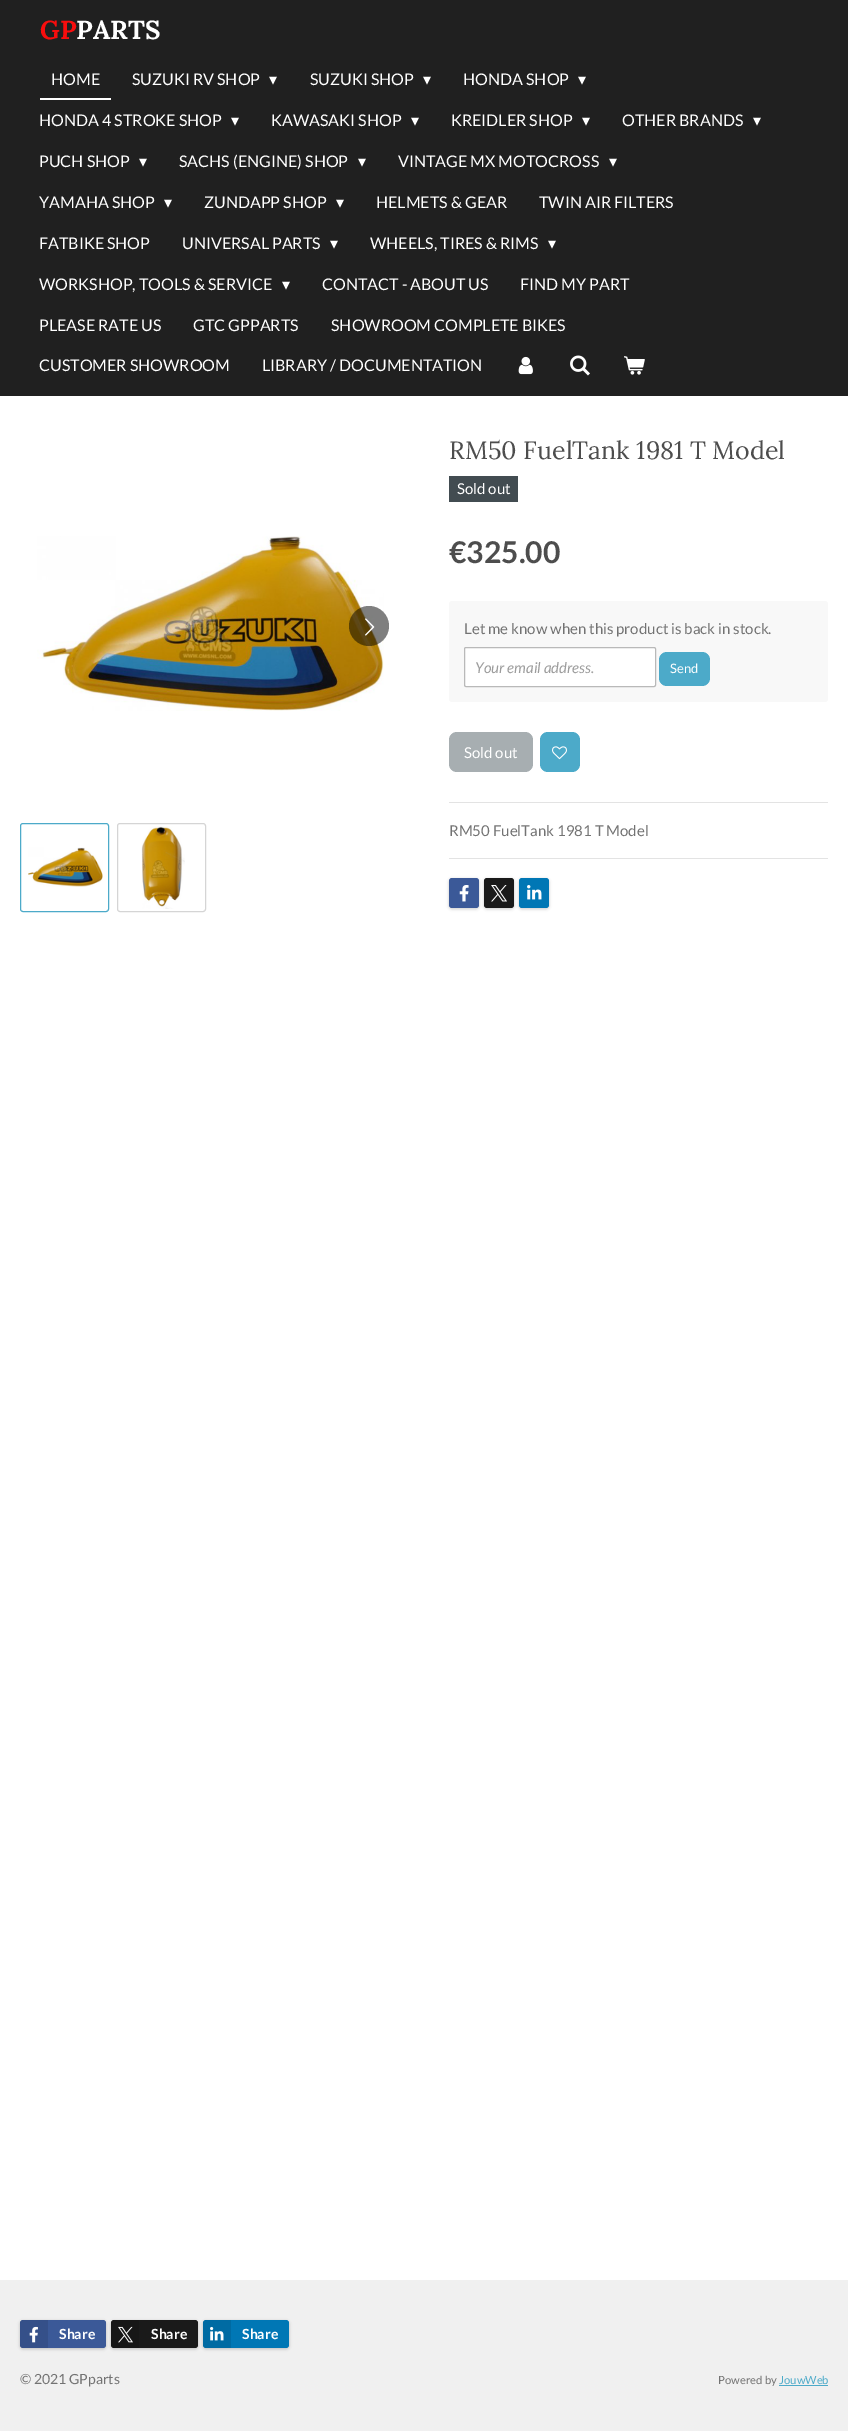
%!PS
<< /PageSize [848 2431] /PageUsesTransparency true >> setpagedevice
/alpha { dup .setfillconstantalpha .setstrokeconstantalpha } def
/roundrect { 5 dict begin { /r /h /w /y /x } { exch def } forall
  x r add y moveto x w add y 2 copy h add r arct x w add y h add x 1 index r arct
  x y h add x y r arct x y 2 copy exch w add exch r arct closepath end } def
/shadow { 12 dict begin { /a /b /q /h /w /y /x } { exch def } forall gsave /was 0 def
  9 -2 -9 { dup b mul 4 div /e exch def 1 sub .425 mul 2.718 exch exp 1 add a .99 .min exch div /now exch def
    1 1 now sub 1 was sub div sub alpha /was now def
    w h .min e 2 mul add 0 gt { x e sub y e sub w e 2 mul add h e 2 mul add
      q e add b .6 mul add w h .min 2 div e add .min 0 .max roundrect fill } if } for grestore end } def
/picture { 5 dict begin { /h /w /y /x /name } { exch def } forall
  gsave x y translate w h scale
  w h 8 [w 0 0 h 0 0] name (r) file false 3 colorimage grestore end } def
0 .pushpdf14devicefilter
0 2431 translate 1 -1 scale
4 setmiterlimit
1 setgray
0 0 848 2431 rectfill
0.125 setgray
0 0 848 396 rectfill
/Lora-Bold [26 0 0 -26 0 0] selectfont
0.973 0.051 0.051 setrgbcolor
40 39 moveto (GP) show
1 setgray
76 39 moveto (PARTS) show
40 98 71 2 rectfill
/Lato-Regular [16 0 0 -16 0 0] selectfont
51 85 moveto (HOME) show
132 85 moveto (SUZUKI RV SHOP) show
/DejaVuSans-Regular [16 0 0 -16 0 0] selectfont
269 85 moveto (▾) show
/Lato-Regular [16 0 0 -16 0 0] selectfont
310 85 moveto (SUZUKI SHOP) show
/DejaVuSans-Regular [16 0 0 -16 0 0] selectfont
423 85 moveto (▾) show
/Lato-Regular [16 0 0 -16 0 0] selectfont
463 85 moveto (HONDA SHOP) show
/DejaVuSans-Regular [16 0 0 -16 0 0] selectfont
578 85 moveto (▾) show
/Lato-Regular [16 0 0 -16 0 0] selectfont
39 126 moveto (HONDA 4 STROKE SHOP) show
/DejaVuSans-Regular [16 0 0 -16 0 0] selectfont
231 126 moveto (▾) show
/Lato-Regular [16 0 0 -16 0 0] selectfont
271 126 moveto (KAWASAKI SHOP) show
/DejaVuSans-Regular [16 0 0 -16 0 0] selectfont
411 126 moveto (▾) show
/Lato-Regular [16 0 0 -16 0 0] selectfont
451 126 moveto (KREIDLER SHOP) show
/DejaVuSans-Regular [16 0 0 -16 0 0] selectfont
582 126 moveto (▾) show
/Lato-Regular [16 0 0 -16 0 0] selectfont
622 126 moveto (OTHER BRANDS) show
/DejaVuSans-Regular [16 0 0 -16 0 0] selectfont
753 126 moveto (▾) show
/Lato-Regular [16 0 0 -16 0 0] selectfont
39 167 moveto (PUCH SHOP) show
/DejaVuSans-Regular [16 0 0 -16 0 0] selectfont
139 167 moveto (▾) show
/Lato-Regular [16 0 0 -16 0 0] selectfont
179 167 moveto (SACHS \(ENGINE\) SHOP) show
/DejaVuSans-Regular [16 0 0 -16 0 0] selectfont
358 167 moveto (▾) show
/Lato-Regular [16 0 0 -16 0 0] selectfont
398 167 moveto (VINTAGE MX MOTOCROSS) show
/DejaVuSans-Regular [16 0 0 -16 0 0] selectfont
609 167 moveto (▾) show
/Lato-Regular [16 0 0 -16 0 0] selectfont
39 208 moveto (YAMAHA SHOP) show
/DejaVuSans-Regular [16 0 0 -16 0 0] selectfont
164 208 moveto (▾) show
/Lato-Regular [16 0 0 -16 0 0] selectfont
204 208 moveto (ZUNDAPP SHOP) show
/DejaVuSans-Regular [16 0 0 -16 0 0] selectfont
336 208 moveto (▾) show
/Lato-Regular [16 0 0 -16 0 0] selectfont
376 208 moveto (HELMETS & GEAR) show
539 208 moveto (TWIN AIR FILTERS) show
39 249 moveto (FATBIKE SHOP) show
182 249 moveto (UNIVERSAL PARTS) show
/DejaVuSans-Regular [16 0 0 -16 0 0] selectfont
330 249 moveto (▾) show
/Lato-Regular [16 0 0 -16 0 0] selectfont
370 249 moveto (WHEELS, TIRES & RIMS) show
/DejaVuSans-Regular [16 0 0 -16 0 0] selectfont
548 249 moveto (▾) show
/Lato-Regular [16 0 0 -16 0 0] selectfont
39 290 moveto (WORKSHOP, TOOLS & SERVICE) show
/DejaVuSans-Regular [16 0 0 -16 0 0] selectfont
282 290 moveto (▾) show
/Lato-Regular [16 0 0 -16 0 0] selectfont
322 290 moveto (CONTACT - ABOUT US) show
520 290 moveto (FIND MY PART) show
39 331 moveto (PLEASE RATE US) show
193 331 moveto (GTC GPPARTS) show
331 331 moveto (SHOWROOM COMPLETE BIKES) show
39 371 moveto (CUSTOMER SHOWROOM) show
262 371 moveto (LIBRARY / DOCUMENTATION) show
(img1.rgb) 518 356 15 19 picture
(img2.rgb) 570 355 20 21 picture
(img3.rgb) 624 356 21 19 picture
/Lora-Regular [25 0 0 -25 0 0] selectfont
0.302 setgray
449 459 moveto (RM50 FuelTank 1981 T Model) show
0.259 0.298 0.318 setrgbcolor
449 476 69 26 rectfill
/Lato-Regular [15 0 0 -15 0 0] selectfont
1 setgray
457 494 moveto (Sold out) show
(img4.rgb) 37 536 347 175 picture
0.5 alpha
0 setgray
newpath 369 626 20 0 360 arc closepath fill
1 alpha
(img5.rgb) 365 618 10 18 picture
0.298 0.667 0.788 setrgbcolor
20.5 823.5 88 88 2.5 roundrect stroke
(img6.rgb) 28 847 75 40 picture
0.835 setgray
117.5 823.5 88 88 2.5 roundrect stroke
(img7.rgb) 141 826 44 83 picture
/Lato-Bold [30 0 0 -30 0 0] selectfont
0.302 setgray
449 563 moveto (€325.00) show
0.973 setgray
449 601 379 101 3 roundrect fill
/Lato-Regular [15 0 0 -15 0 0] selectfont
0.451 setgray
464 634 moveto (Let me know when this product is back in stock.) show
1 setgray
464.5 647.5 191 39 1.5 roundrect gsave fill grestore
0.725 setgray
stroke
/Lato-Italic [15 0 0 -15 0 0] selectfont
0.616 setgray
475 673 moveto (Your email address.) show
0.298 0.667 0.788 setrgbcolor
659 652 51 34 8 roundrect fill
/Lato-Regular [13 0 0 -13 0 0] selectfont
1 setgray
670 673 moveto (Send) show
0.655 0.682 0.694 setrgbcolor
449 732 84 40 8 roundrect fill
/Lato-Regular [15 0 0 -15 0 0] selectfont
1 setgray
464 758 moveto (Sold out) show
0.298 0.667 0.788 setrgbcolor
540 732 40 40 8 roundrect fill
(img8.rgb) 552 746 15 14 picture
0.89 setgray
449 802 379 1 rectfill
0.451 setgray
449 836 moveto (RM50 FuelTank 1981 T Model) show
0.89 setgray
449 858 379 1 rectfill
0 setgray
449 879 30 30 3 1.5 0.2 shadow
0.231 0.349 0.596 setrgbcolor
449 878 30 30 3 roundrect fill
(img9.rgb) 459 885 10 17 picture
0 setgray
484 879 30 30 3 1.5 0.2 shadow
0.102 setgray
484 878 30 30 3 roundrect fill
(img10.rgb) 491 885 16 17 picture
0 setgray
519 879 30 30 3 1.5 0.2 shadow
0 0.467 0.71 setrgbcolor
519 878 30 30 3 roundrect fill
(img11.rgb) 527 885 15 15 picture
0.941 setgray
0 2280 848 151 rectfill
0 setgray
20 2321 86 28 3 1.5 0.2 shadow
0.231 0.349 0.596 setrgbcolor
20 2320 86 28 3 roundrect fill
0.1 alpha
0 setgray
newpath 23 2320 moveto 48 2320 lineto 48 2348 lineto 23 2348 lineto 21.5 2348 20 2346.5 20 2345 curveto 20 2323 lineto 20 2321.5 21.5 2320 23 2320 curveto closepath fill
1 alpha
(img12.rgb) 29 2326 9 17 picture
/Lato-Bold [14 0 0 -14 0 0] selectfont
1 setgray
59 2339 moveto (Share) show
0 setgray
111 2321 87 28 3 1.5 0.2 shadow
0.102 setgray
111 2320 87 28 3 roundrect fill
0.1 alpha
0 setgray
newpath 114 2320 moveto 139 2320 lineto 139 2348 lineto 114 2348 lineto 112.5 2348 111 2346.5 111 2345 curveto 111 2323 lineto 111 2321.5 112.5 2320 114 2320 curveto closepath fill
1 alpha
(img13.rgb) 118 2326 15 17 picture
1 setgray
151 2339 moveto (Share) show
0 setgray
203 2321 86 28 3 1.5 0.2 shadow
0 0.467 0.71 setrgbcolor
203 2320 86 28 3 roundrect fill
0.1 alpha
0 setgray
newpath 206 2320 moveto 231 2320 lineto 231 2348 lineto 206 2348 lineto 204.5 2348 203 2346.5 203 2345 curveto 203 2323 lineto 203 2321.5 204.5 2320 206 2320 curveto closepath fill
1 alpha
(img14.rgb) 210 2326 14 15 picture
1 setgray
242 2339 moveto (Share) show
/Lato-Regular [14 0 0 -14 0 0] selectfont
0.451 setgray
20 2384 moveto (© 2021 GPparts) show
/Lato-Regular [11.25 0 0 -11.25 0 0] selectfont
718 2384 moveto (Powered by) show
0.298 0.667 0.788 setrgbcolor
779 2384 moveto (JouwWeb) show
779 2385 49 1 rectfill
.poppdf14devicefilter showpage
